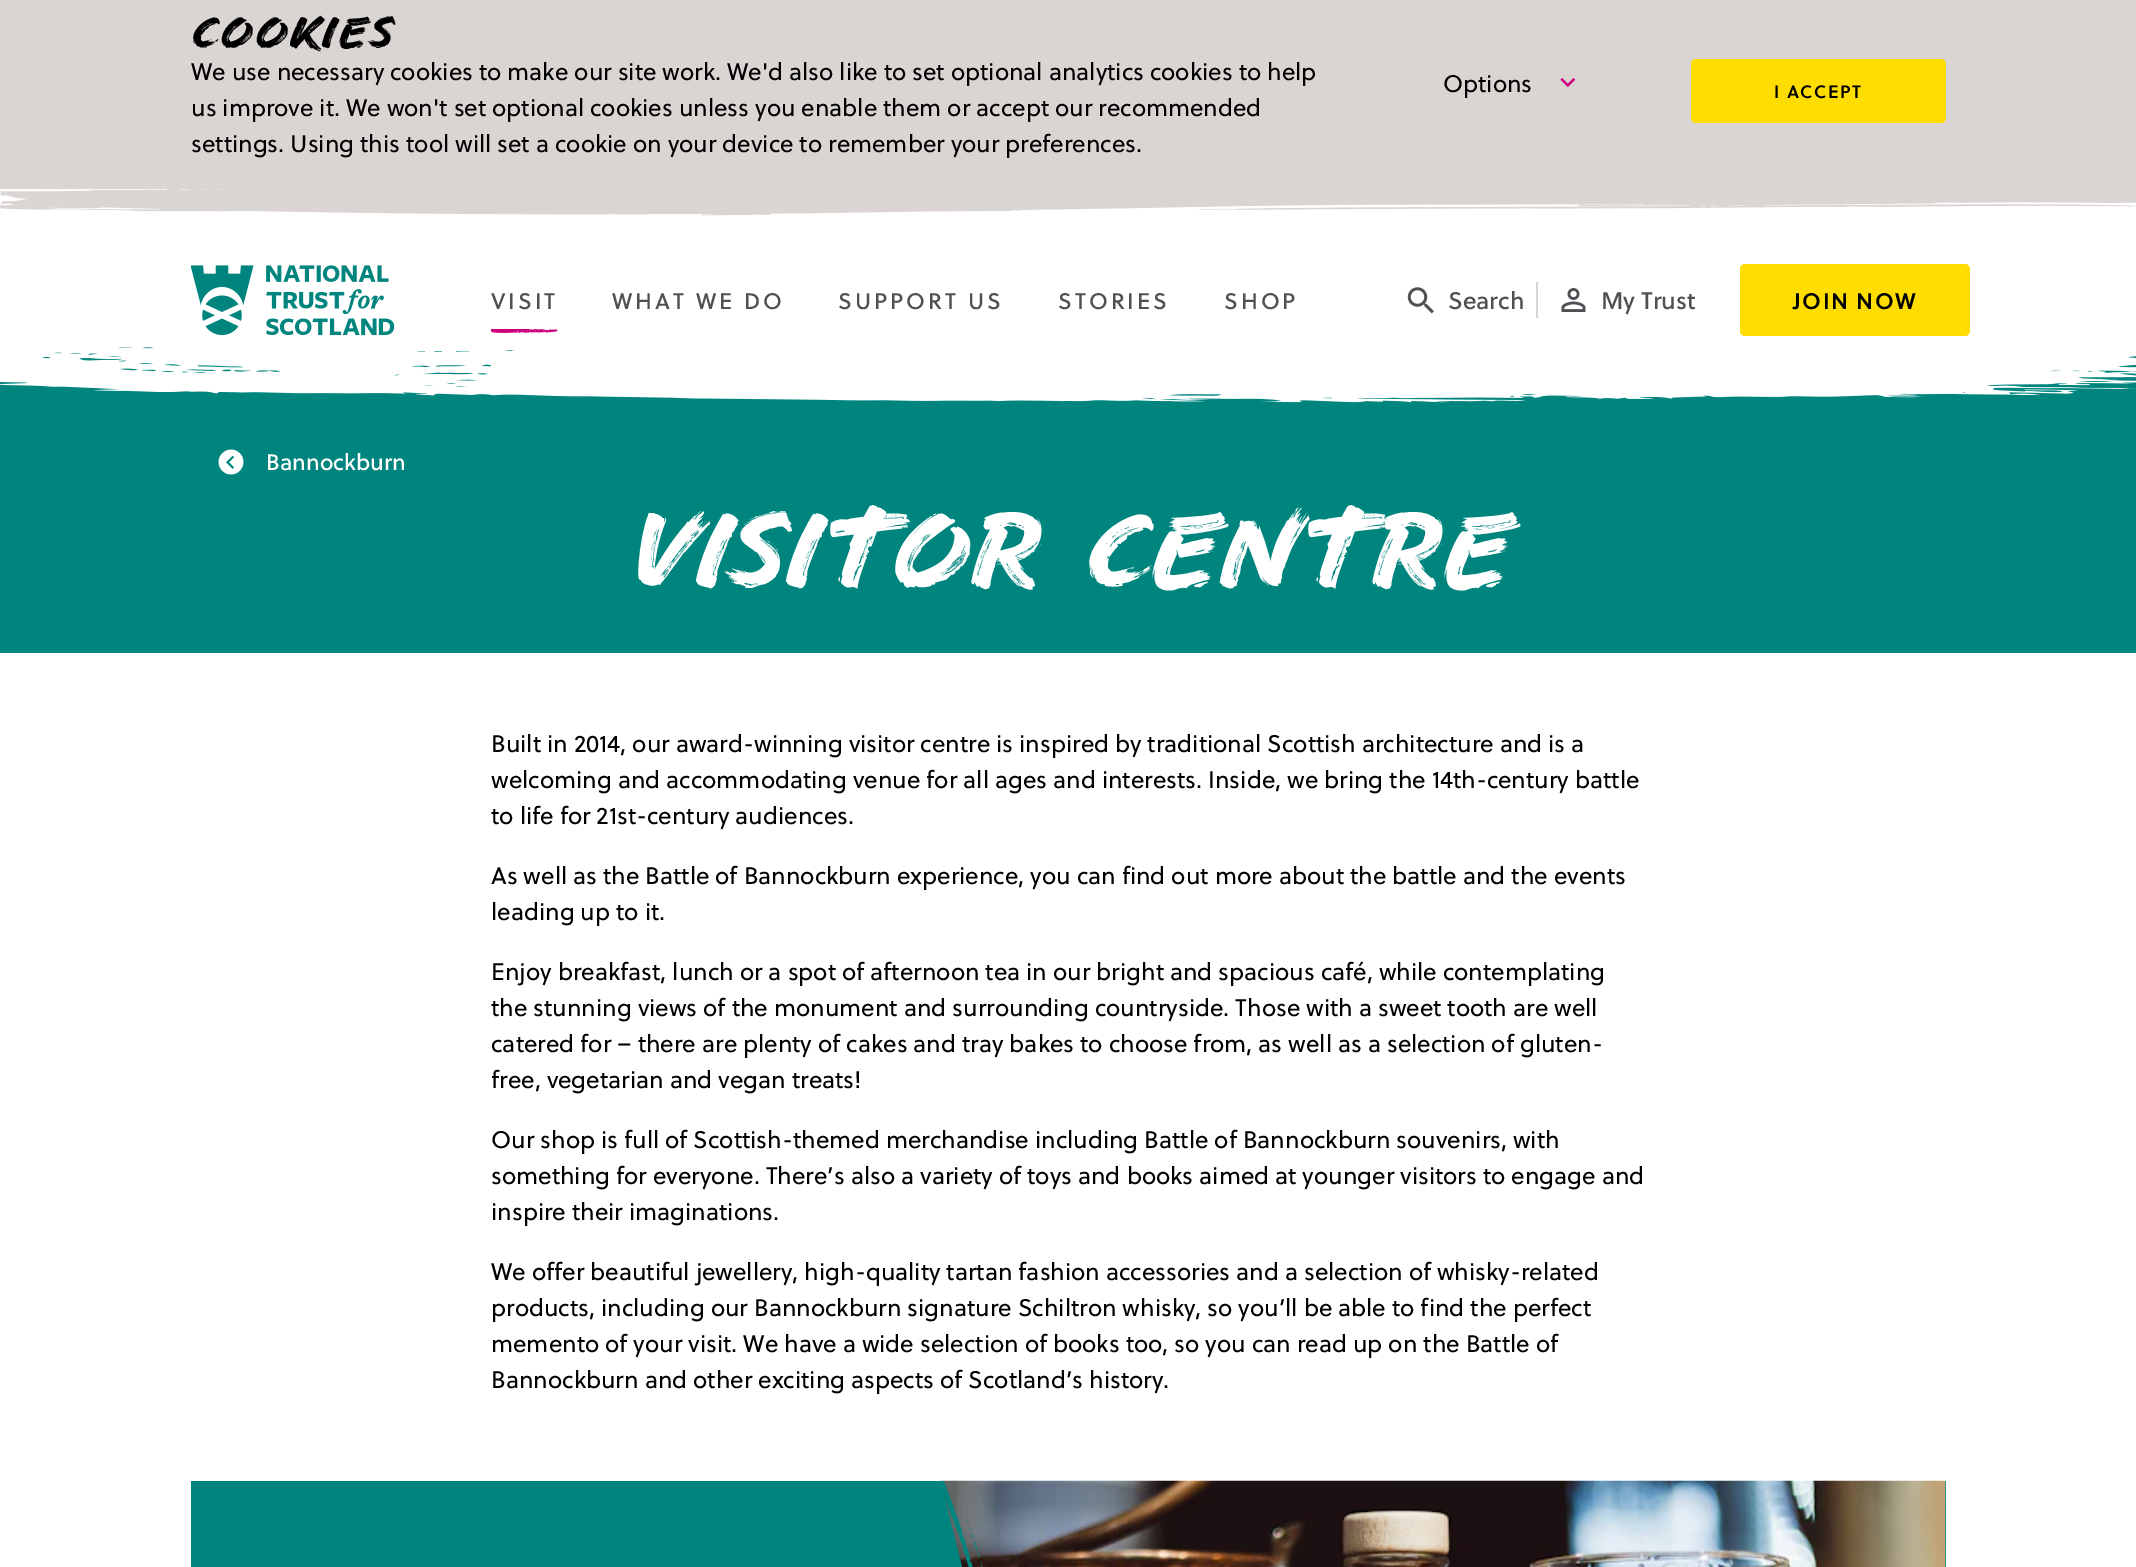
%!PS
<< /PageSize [2136 1567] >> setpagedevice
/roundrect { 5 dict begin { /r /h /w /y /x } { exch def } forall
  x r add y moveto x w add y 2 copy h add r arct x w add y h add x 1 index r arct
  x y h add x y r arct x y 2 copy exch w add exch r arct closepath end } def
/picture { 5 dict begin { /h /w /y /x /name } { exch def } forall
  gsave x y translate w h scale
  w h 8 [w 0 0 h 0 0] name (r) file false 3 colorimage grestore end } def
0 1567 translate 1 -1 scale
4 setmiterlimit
1 setgray
0 0 2136 1567 rectfill
0.855 0.835 0.827 setrgbcolor
0 0 2136 188 rectfill
/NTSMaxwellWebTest-Regular [43.5 0 0 -43.5 0 0] selectfont
0 setgray
191 48 moveto 1.75 0 (COOKIES) ashow
/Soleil-Regular [24 0 0 -24 0 0] selectfont
191 80 moveto (We use necessary cookies to make our site work. We'd also like to set optional analytics cookies to help) show
191 116 moveto (us improve it. We won't set optional cookies unless you enable them or accept our recommended) show
191 152 moveto (settings. Using this tool will set a cookie on your device to remember your preferences.) show
1443 92 moveto (Options) show
(img1.rgb) 1560 78 16 10 picture
1 0.867 0 setrgbcolor
1691 59 255 64 5 roundrect fill
/Soleil-SemiBold [18 0 0 -18 0 0] selectfont
0 setgray
1774 98 moveto 1.5 0 (I ACCEPT) ashow
(img2.rgb) 0 188 2136 28 picture
(img3.rgb) 191 265 204 71 picture
/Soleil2-Regular [22.5 0 0 -22.5 0 0] selectfont
0.31 0.314 0.329 setrgbcolor
491 309 moveto 3 0 (VISIT) ashow
(img4.rgb) 491 329 67 4 picture
612 309 moveto 3 0 (WHAT WE DO) ashow
838 309 moveto 3 0 (SUPPORT US) ashow
1058 309 moveto 3 0 (STORIES) ashow
1224 309 moveto 3 0 (SHOP) ashow
0.855 0.835 0.827 setrgbcolor
1536 282 2 36 rectfill
(img5.rgb) 1407 287 27 27 picture
/Soleil2-Regular [24 0 0 -24 0 0] selectfont
0.31 0.314 0.329 setrgbcolor
1448 309 moveto (Search) show
(img6.rgb) 1561 288 25 24 picture
1601 309 moveto (My Trust) show
1 0.867 0 setrgbcolor
1740 264 230 72 5 roundrect fill
/Soleil-SemiBold [22.5 0 0 -22.5 0 0] selectfont
0 setgray
1793 309 moveto 1.5 0 (JOIN NOW) ashow
0 0.522 0.494 setrgbcolor
0 347 2136 306 rectfill
(img7.rgb) 0 347 2136 56 picture
(img8.rgb) 218 449 26 26 picture
/Soleil2-Regular [22.5 0 0 -22.5 0 0] selectfont
1 setgray
266 470 moveto (Bannockburn) show
/NTSMaxwellWebTest-Regular [105 0 0 -105 0 0] selectfont
626 588 moveto 16 0 32 -1.6 0 (VISITOR CENTRE) awidthshow
/Soleil-Regular [24 0 0 -24 0 0] selectfont
0 setgray
491 752 moveto (Built in 2014, our award-winning visitor centre is inspired by traditional Scottish architecture and is a) show
491 788 moveto (welcoming and accommodating venue for all ages and interests. Inside, we bring the 14th-century battle) show
491 824 moveto (to life for 21st-century audiences.) show
491 884 moveto (As well as the Battle of Bannockburn experience, you can find out more about the battle and the events) show
491 920 moveto (leading up to it.) show
491 980 moveto (Enjoy breakfast, lunch or a spot of afternoon tea in our bright and spacious café, while contemplating) show
491 1016 moveto (the stunning views of the monument and surrounding countryside. Those with a sweet tooth are well) show
491 1052 moveto (catered for – there are plenty of cakes and tray bakes to choose from, as well as a selection of gluten-) show
491 1088 moveto (free, vegetarian and vegan treats!) show
491 1148 moveto (Our shop is full of Scottish-themed merchandise including Battle of Bannockburn souvenirs, with) show
491 1184 moveto (something for everyone. There’s also a variety of toys and books aimed at younger visitors to engage and) show
491 1220 moveto (inspire their imaginations.) show
491 1280 moveto (We offer beautiful jewellery, high-quality tartan fashion accessories and a selection of whisky-related) show
491 1316 moveto (products, including our Bannockburn signature Schiltron whisky, so you’ll be able to find the perfect) show
491 1352 moveto (memento of your visit. We have a wide selection of books too, so you can read up on the Battle of) show
491 1388 moveto (Bannockburn and other exciting aspects of Scotland’s history.) show
0 0.522 0.494 setrgbcolor
191 1481 1755 86 rectfill
(img9.rgb) 940 1480 1006 87 picture
gsave
918 1481 1028 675 rectclip
newpath 933 1450 moveto 1187 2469 lineto 205 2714 lineto -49 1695 lineto closepath fill
grestore
(img10.rgb) 940 1481 43 86 picture
showpage
